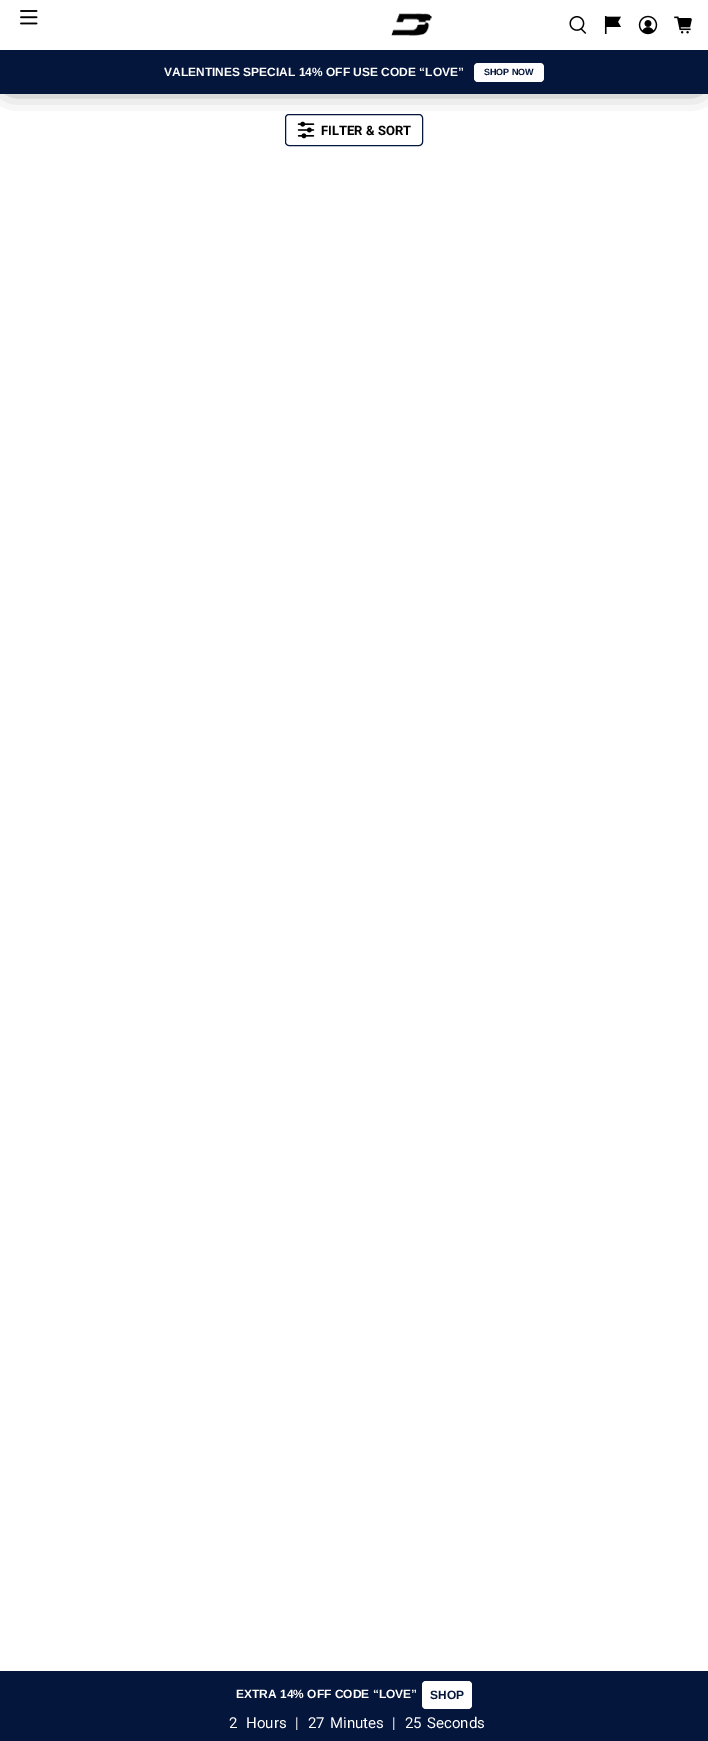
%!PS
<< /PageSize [708 1741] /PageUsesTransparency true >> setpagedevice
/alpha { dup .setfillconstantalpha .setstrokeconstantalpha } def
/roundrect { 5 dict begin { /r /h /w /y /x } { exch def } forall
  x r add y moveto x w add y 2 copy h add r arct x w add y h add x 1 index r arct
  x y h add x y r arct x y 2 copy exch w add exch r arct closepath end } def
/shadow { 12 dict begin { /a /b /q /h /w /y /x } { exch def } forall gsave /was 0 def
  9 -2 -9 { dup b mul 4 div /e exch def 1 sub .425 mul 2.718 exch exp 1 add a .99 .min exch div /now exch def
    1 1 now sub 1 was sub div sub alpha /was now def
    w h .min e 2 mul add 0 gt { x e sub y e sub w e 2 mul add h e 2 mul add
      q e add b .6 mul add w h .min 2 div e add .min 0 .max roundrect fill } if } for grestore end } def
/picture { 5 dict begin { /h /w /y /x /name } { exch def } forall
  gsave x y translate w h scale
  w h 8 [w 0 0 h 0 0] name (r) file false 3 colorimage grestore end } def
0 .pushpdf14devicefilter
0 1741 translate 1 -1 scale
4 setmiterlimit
1 setgray
0 0 708 1741 rectfill
0.02 0.086 0.239 setrgbcolor
285.5 114.5 137 31 3.5 roundrect stroke
(img7.rgb) 297 121 18 18 picture
0 setgray
11 61 686 22 0 12.5 1 shadow
1 setgray
0 32 708 18 rectfill
(img1.rgb) 20 10 18 15 picture
(img2.rgb) 391 13 41 23 picture
(img3.rgb) 569 16 18 18 picture
(img4.rgb) 604 16 17 18 picture
(img5.rgb) 638 15 20 20 picture
(img6.rgb) 674 16 18 18 picture
0.02 0.086 0.239 setrgbcolor
0 50 708 44 rectfill
/LiberationSans-Bold [12 0 0 -12 0 0] selectfont
1 setgray
164 76 moveto (VALENTINES SPECIAL 14% OFF USE CODE “LOVE”) show
474 63 70 19 4 roundrect fill
/LiberationSans-Bold [9 0 0 -9 0 0] selectfont
0.02 0.086 0.239 setrgbcolor
484 75 moveto (SHOP NOW) show
/Roboto-Bold [13 0 0 -13 0 0] selectfont
0 setgray
321 135 moveto (FILTER & SORT) show
0.02 0.086 0.239 setrgbcolor
0 1671 708 70 rectfill
/LiberationSans-Bold [12 0 0 -12 0 0] selectfont
1 setgray
236 1698 moveto (EXTRA 14% OFF CODE “LOVE”) show
422 1681 50 28 4 roundrect fill
0.02 0.086 0.239 setrgbcolor
430 1699 moveto (SHOP) show
/Roboto-Regular [15 0 0 -15 0 0] selectfont
1 setgray
229 1728 moveto (2) show
246 1728 moveto (Hours) show
295 1728 moveto (|) show
308 1728 moveto (27) show
330 1728 moveto (Minutes) show
392 1728 moveto (|) show
405 1728 moveto (25) show
427 1728 moveto (Seconds) show
.poppdf14devicefilter showpage
